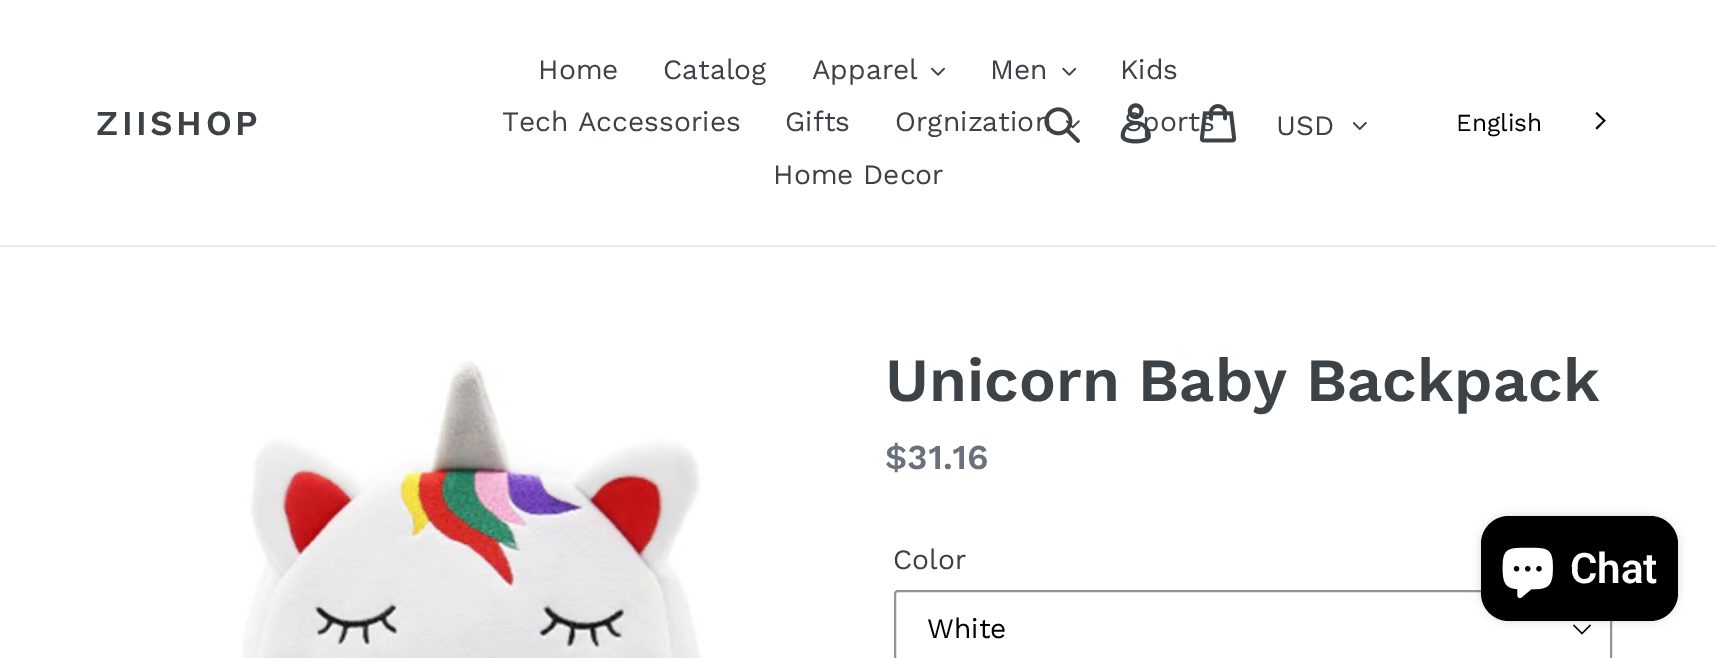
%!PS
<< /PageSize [1716 658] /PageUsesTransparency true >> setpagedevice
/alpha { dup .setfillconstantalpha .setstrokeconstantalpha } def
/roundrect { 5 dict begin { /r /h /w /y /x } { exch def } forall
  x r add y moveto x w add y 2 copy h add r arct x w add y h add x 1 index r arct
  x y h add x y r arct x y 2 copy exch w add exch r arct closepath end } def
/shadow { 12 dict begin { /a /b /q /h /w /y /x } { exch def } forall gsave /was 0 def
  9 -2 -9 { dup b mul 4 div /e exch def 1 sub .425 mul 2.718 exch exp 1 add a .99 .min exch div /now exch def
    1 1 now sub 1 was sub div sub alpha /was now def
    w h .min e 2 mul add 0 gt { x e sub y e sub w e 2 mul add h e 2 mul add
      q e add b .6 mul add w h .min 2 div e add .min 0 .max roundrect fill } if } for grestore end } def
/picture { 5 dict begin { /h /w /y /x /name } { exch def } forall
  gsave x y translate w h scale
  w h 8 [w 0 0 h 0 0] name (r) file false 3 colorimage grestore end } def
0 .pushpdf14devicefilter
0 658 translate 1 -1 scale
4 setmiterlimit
1 setgray
0 0 1716 658 rectfill
0.91 0.914 0.922 setrgbcolor
0 245 1716 2 rectfill
/WorkSans-SemiBold [35 0 0 -35 0 0] selectfont
0.239 0.259 0.275 setrgbcolor
96 135 moveto 3.5 0 (ZIISHOP) ashow
/WorkSans-Regular [28 0 0 -28 0 0] selectfont
538 79 moveto (Home) show
663 79 moveto (Catalog) show
812 79 moveto (Apparel) show
(img1.rgb) 931 67 14 9 picture
990 79 moveto (Men) show
(img2.rgb) 1062 67 14 9 picture
1120 79 moveto (Kids) show
502 131 moveto (Tech Accessories) show
785 131 moveto (Gifts) show
895 131 moveto (Orgnization) show
(img3.rgb) 1066 120 14 9 picture
1124 131 moveto (Sports) show
773 184 moveto (Home Decor) show
(img4.rgb) 1044 107 36 36 picture
(img5.rgb) 1120 103 31 41 picture
(img6.rgb) 1199 104 38 39 picture
1276 135 moveto (USD) show
(img7.rgb) 1353 122 14 8 picture
/WorkSans-Regular [24.5 0 0 -24.5 0 0] selectfont
0 setgray
1456 131 moveto (English) show
newpath 1597 112 moveto 1605.5 120.5 lineto 1604.5 122 lineto 1595.5 113.5 lineto closepath fill
newpath 1604.5 119.5 moveto 1605.5 120.5 lineto 1597 129.5 lineto 1595.5 128 lineto closepath fill
(img8.rgb) 241 360 460 298 picture
/WorkSans-SemiBold [61.25 0 0 -61.25 0 0] selectfont
0.239 0.259 0.275 setrgbcolor
885 401 moveto (Unicorn Baby Backpack) show
/WorkSans-SemiBold [35 0 0 -35 0 0] selectfont
0.412 0.447 0.482 setrgbcolor
885 469 moveto ($31.16) show
/WorkSans-Regular [28 0 0 -28 0 0] selectfont
0.239 0.259 0.275 setrgbcolor
893 569 moveto (Color) show
0 setgray
newpath 1582 634.5 moveto 1573 625.5 lineto 1574 624.5 lineto 1582 632.5 lineto 1590 624.5 lineto 1591 625.5 lineto closepath fill
0.58 setgray
2 setlinewidth
895 591 716 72 3 roundrect stroke
0 setgray
927 638 moveto (White) show
1481 516 197 105 28 4.5 0.15 shadow
1481 516 197 105 28 roundrect fill
(img9.rgb) 1502 547 51 52 picture
/Roboto-SemiBold [42 0 0 -42 0 0] selectfont
1 setgray
1570 583 moveto (Chat) show
.poppdf14devicefilter showpage
